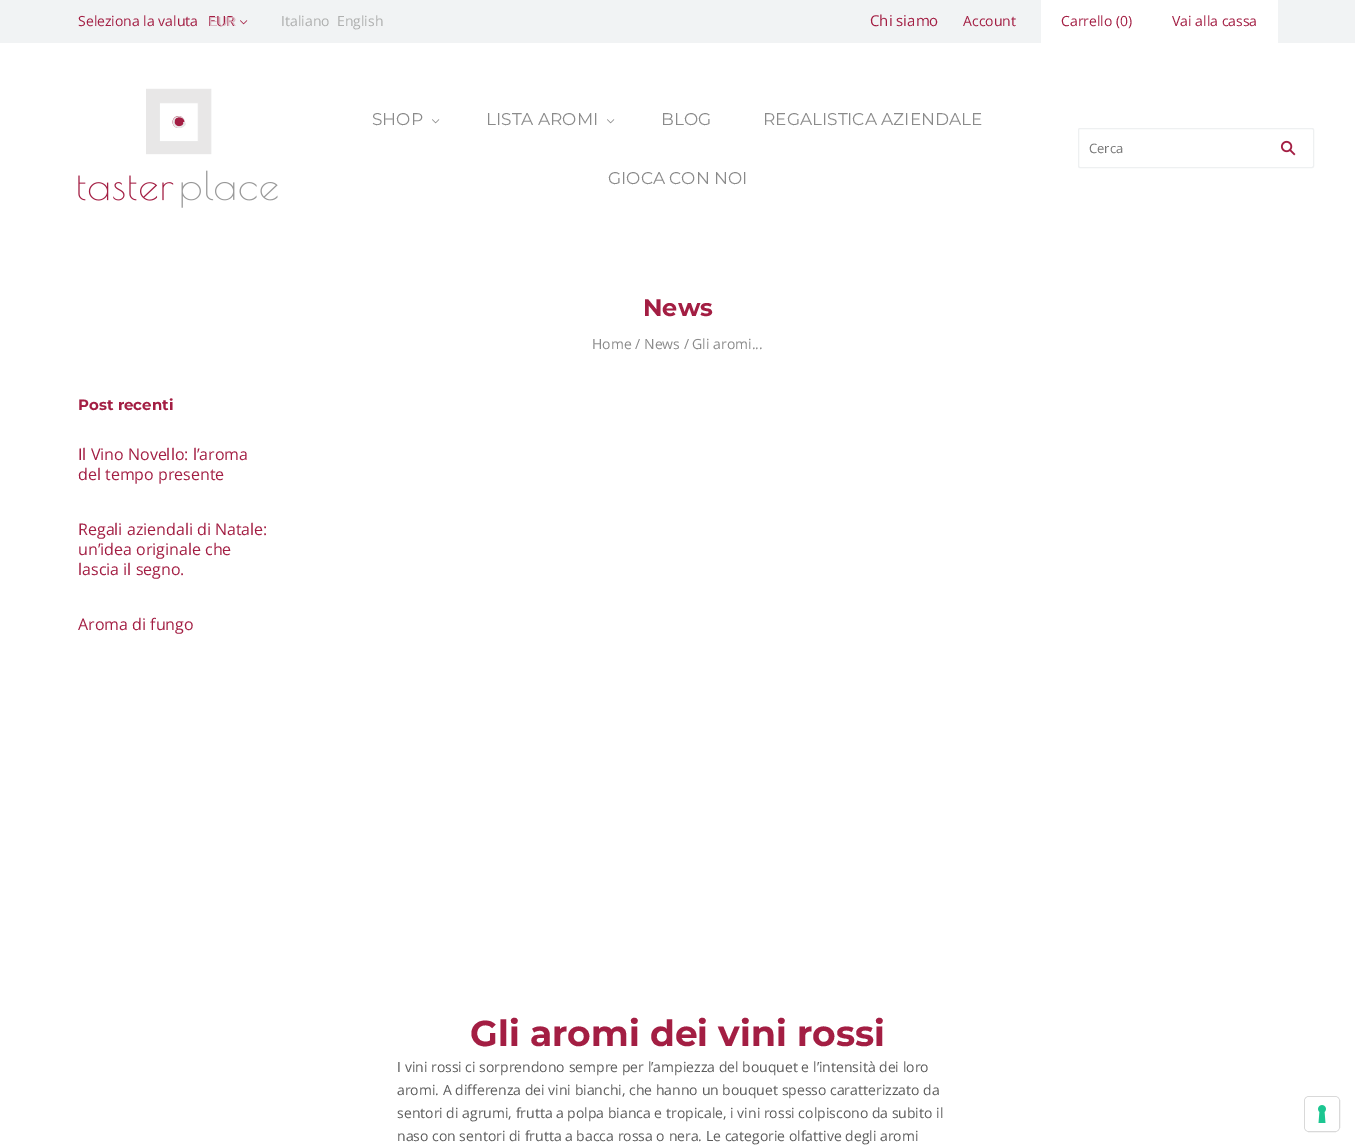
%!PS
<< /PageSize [1355 1147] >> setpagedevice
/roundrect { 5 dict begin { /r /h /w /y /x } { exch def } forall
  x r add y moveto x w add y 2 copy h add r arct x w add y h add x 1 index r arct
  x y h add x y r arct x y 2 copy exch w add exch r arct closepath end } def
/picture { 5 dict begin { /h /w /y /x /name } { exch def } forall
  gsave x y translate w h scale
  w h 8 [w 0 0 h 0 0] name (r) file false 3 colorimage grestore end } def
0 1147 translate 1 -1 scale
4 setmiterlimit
1 setgray
0 0 1355 1147 rectfill
0.945 0.953 0.957 setrgbcolor
0 0 1355 43 rectfill
/OpenSans-Regular [14 0 0 -14 0 0] selectfont
0.639 0.118 0.263 setrgbcolor
78 26 moveto (Seleziona la valuta) show
208 26 moveto (EUR) show
(img1.rgb) 240 20 8 5 picture
/LiberationSans-Regular [13 0 0 -13 0 0] selectfont
0.859 0.718 0.761 setrgbcolor
209 26 moveto (EUR) show
/OpenSans-Regular [14 0 0 -14 0 0] selectfont
0.686 0.69 0.686 setrgbcolor
281 26 moveto (Italiano) show
337 26 moveto (English) show
/OpenSans-Regular [15 0 0 -15 0 0] selectfont
0.639 0.118 0.263 setrgbcolor
870 26 moveto (Chi siamo) show
/OpenSans-Regular [14 0 0 -14 0 0] selectfont
963 26 moveto (Account) show
1 setgray
1041 0 237 43 rectfill
0.639 0.118 0.263 setrgbcolor
1061 26 moveto (Carrello \(0\)) show
1172 26 moveto (Vai alla cassa) show
(img2.rgb) 78 88 200 120 picture
/Montserrat-Regular [17 0 0 -17 0 0] selectfont
0.541 setgray
372 125 moveto (SHOP) show
(img3.rgb) 432 119 8 5 picture
486 125 moveto (LISTA AROMI) show
(img3.rgb) 607 119 8 5 picture
661 125 moveto (BLOG) show
763 125 moveto (REGALISTICA AZIENDALE) show
608 184 moveto (GIOCA CON NOI) show
0.933 0.941 0.945 setrgbcolor
1078.5 128.5 235 39 1.5 roundrect stroke
/OpenSans-Regular [13 0 0 -13 0 0] selectfont
0.459 setgray
1089 153 moveto (Cerca) show
(img4.rgb) 1280 140 16 16 picture
/Montserrat-Bold [24 0 0 -24 0 0] selectfont
0.639 0.118 0.263 setrgbcolor
643 316 moveto (News) show
/OpenSans-Regular [14 0 0 -14 0 0] selectfont
0.541 setgray
592 349 moveto (Home / News / Gli aromi...) show
/Montserrat-Bold [15 0 0 -15 0 0] selectfont
0.639 0.118 0.263 setrgbcolor
78 410 moveto (Post recenti) show
/OpenSans-Regular [16 0 0 -16 0 0] selectfont
78 460 moveto (Il Vino Novello: l’aroma) show
78 480 moveto (del tempo presente) show
78 535 moveto (Regali aziendali di Natale:) show
78 555 moveto (un’idea originale che) show
78 575 moveto (lascia il segno.) show
78 630 moveto (Aroma di fungo) show
/Montserrat-Bold [36 0 0 -36 0 0] selectfont
470 1046 moveto (Gli aromi dei vini rossi) show
/OpenSans-Regular [14 0 0 -14 0 0] selectfont
0.361 setgray
397 1072 moveto (I vini rossi ci sorprendono sempre per l’ampiezza del bouquet e l’intensità dei loro) show
397 1095 moveto (aromi. A differenza dei vini bianchi, che hanno un bouquet spesso caratterizzato da) show
397 1118 moveto (sentori di agrumi, frutta a polpa bianca e tropicale, i vini rossi colpiscono da subito il) show
397 1141 moveto (naso con sentori di frutta a bacca rossa o nera. Le categorie olfattive degli aromi) show
0.851 setgray
1304.5 1096.5 35 35 4.5 roundrect stroke
1 setgray
1305 1097 34 34 4 roundrect fill
(img5.rgb) 1318 1105 8 18 picture
showpage
